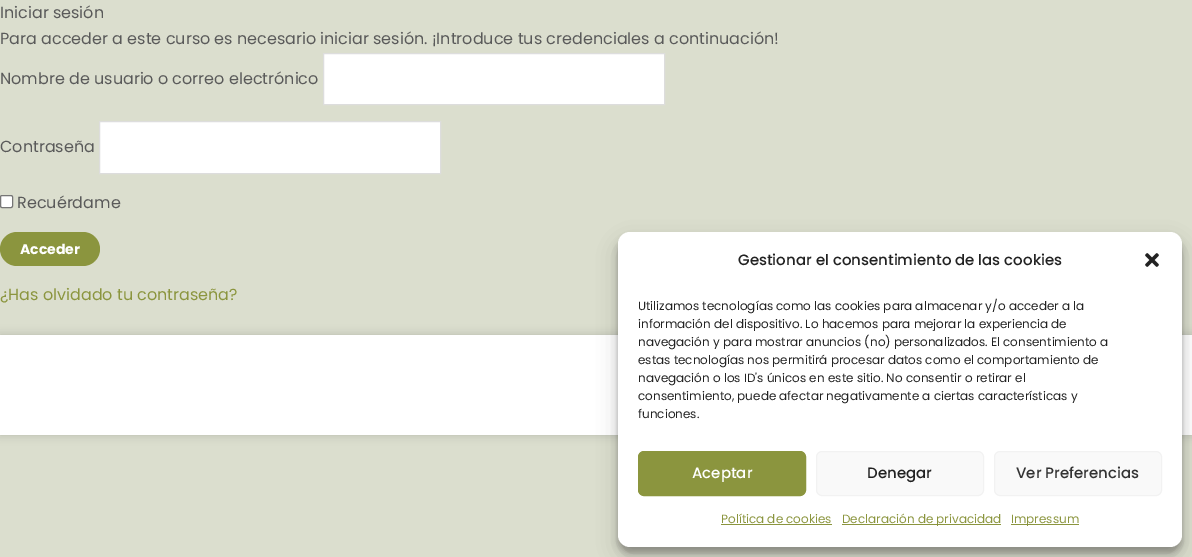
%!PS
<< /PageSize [1192 557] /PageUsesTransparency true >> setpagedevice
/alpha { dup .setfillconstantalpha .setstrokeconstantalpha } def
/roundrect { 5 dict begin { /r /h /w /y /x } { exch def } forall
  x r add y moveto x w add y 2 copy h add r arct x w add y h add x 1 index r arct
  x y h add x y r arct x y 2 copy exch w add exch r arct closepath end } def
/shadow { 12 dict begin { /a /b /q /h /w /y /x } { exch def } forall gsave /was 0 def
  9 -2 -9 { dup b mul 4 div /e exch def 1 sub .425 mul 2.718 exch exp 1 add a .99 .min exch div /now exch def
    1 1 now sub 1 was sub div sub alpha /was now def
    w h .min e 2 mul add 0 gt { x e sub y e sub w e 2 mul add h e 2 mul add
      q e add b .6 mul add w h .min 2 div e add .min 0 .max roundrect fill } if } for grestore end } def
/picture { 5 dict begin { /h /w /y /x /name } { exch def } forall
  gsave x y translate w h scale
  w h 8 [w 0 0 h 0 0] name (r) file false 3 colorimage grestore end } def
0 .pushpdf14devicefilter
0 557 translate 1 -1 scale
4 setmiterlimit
0.859 0.871 0.808 setrgbcolor
0 0 1192 557 rectfill
/Poppins-Regular [16 0 0 -16 0 0] selectfont
0.353 setgray
0 18 moveto (Iniciar sesión) show
0 44 moveto (Para acceder a este curso es necesario iniciar sesión. ¡Introduce tus credenciales a continuación!) show
0 84 moveto (Nombre de usuario o correo electrónico) show
1 setgray
newpath 323.5 53.5 moveto 664.5 53.5 lineto 664.5 104.5 lineto 323.5 104.5 lineto closepath gsave fill grestore
0.867 setgray
stroke
0.353 setgray
0 152 moveto (Contraseña) show
1 setgray
newpath 99.5 121.5 moveto 440.5 121.5 lineto 440.5 173.5 lineto 99.5 173.5 lineto closepath gsave fill grestore
0.867 setgray
stroke
1 setgray
0.5 195.5 12 12 1.5 roundrect gsave fill grestore
0.463 setgray
stroke
0.353 setgray
17 208 moveto (Recuérdame) show
0.545 0.584 0.243 setrgbcolor
0 232 100 34 17 roundrect fill
/Poppins-Bold [14 0 0 -14 0 0] selectfont
1 setgray
20 254 moveto (Acceder) show
/Poppins-Regular [16 0 0 -16 0 0] selectfont
0.545 0.584 0.243 setrgbcolor
0 300 moveto (¿Has olvidado tu contraseña?) show
0 setgray
0 335 1192 100 0 5 0.16 shadow
1 setgray
0 335 1192 100 rectfill
0 setgray
618 238 564 315 12 3 0.23 shadow
618 242 564 315 12 10 0.19 shadow
1 setgray
618 232 564 315 12 roundrect fill
/Poppins-Medium [15 0 0 -15 0 0] selectfont
0.133 setgray
738 265 moveto (Gestionar el consentimiento de las cookies) show
(img1.rgb) 1145 253 14 14 picture
/Poppins-Regular [12 0 0 -12 0 0] selectfont
638 310 moveto (Utilizamos tecnologías como las cookies para almacenar y/o acceder a la) show
638 328 moveto (información del dispositivo. Lo hacemos para mejorar la experiencia de) show
638 346 moveto (navegación y para mostrar anuncios \(no\) personalizados. El consentimiento a) show
638 364 moveto (estas tecnologías nos permitirá procesar datos como el comportamiento de) show
638 382 moveto (navegación o los ID's únicos en este sitio. No consentir o retirar el) show
638 400 moveto (consentimiento, puede afectar negativamente a ciertas características y) show
638 418 moveto (funciones.) show
0.545 0.584 0.243 setrgbcolor
638.5 451.5 167 44 5.5 roundrect gsave fill grestore
stroke
/Poppins-Medium [15 0 0 -15 0 0] selectfont
1 setgray
692 478 moveto (Aceptar) show
0.976 setgray
816.5 451.5 167 44 5.5 roundrect gsave fill grestore
0.949 setgray
stroke
0.133 setgray
867 478 moveto (Denegar) show
0.976 setgray
994.5 451.5 167 44 5.5 roundrect gsave fill grestore
0.949 setgray
stroke
0.2 setgray
1016 478 moveto (Ver Preferencias) show
/Poppins-Regular [12 0 0 -12 0 0] selectfont
0.545 0.584 0.243 setrgbcolor
721 523 moveto (Política de cookies) show
721 524 111 1 rectfill
842 524 159 1 rectfill
842 523 moveto (Declaración de privacidad) show
1011 524 68 1 rectfill
1011 523 moveto (Impressum) show
.poppdf14devicefilter showpage
